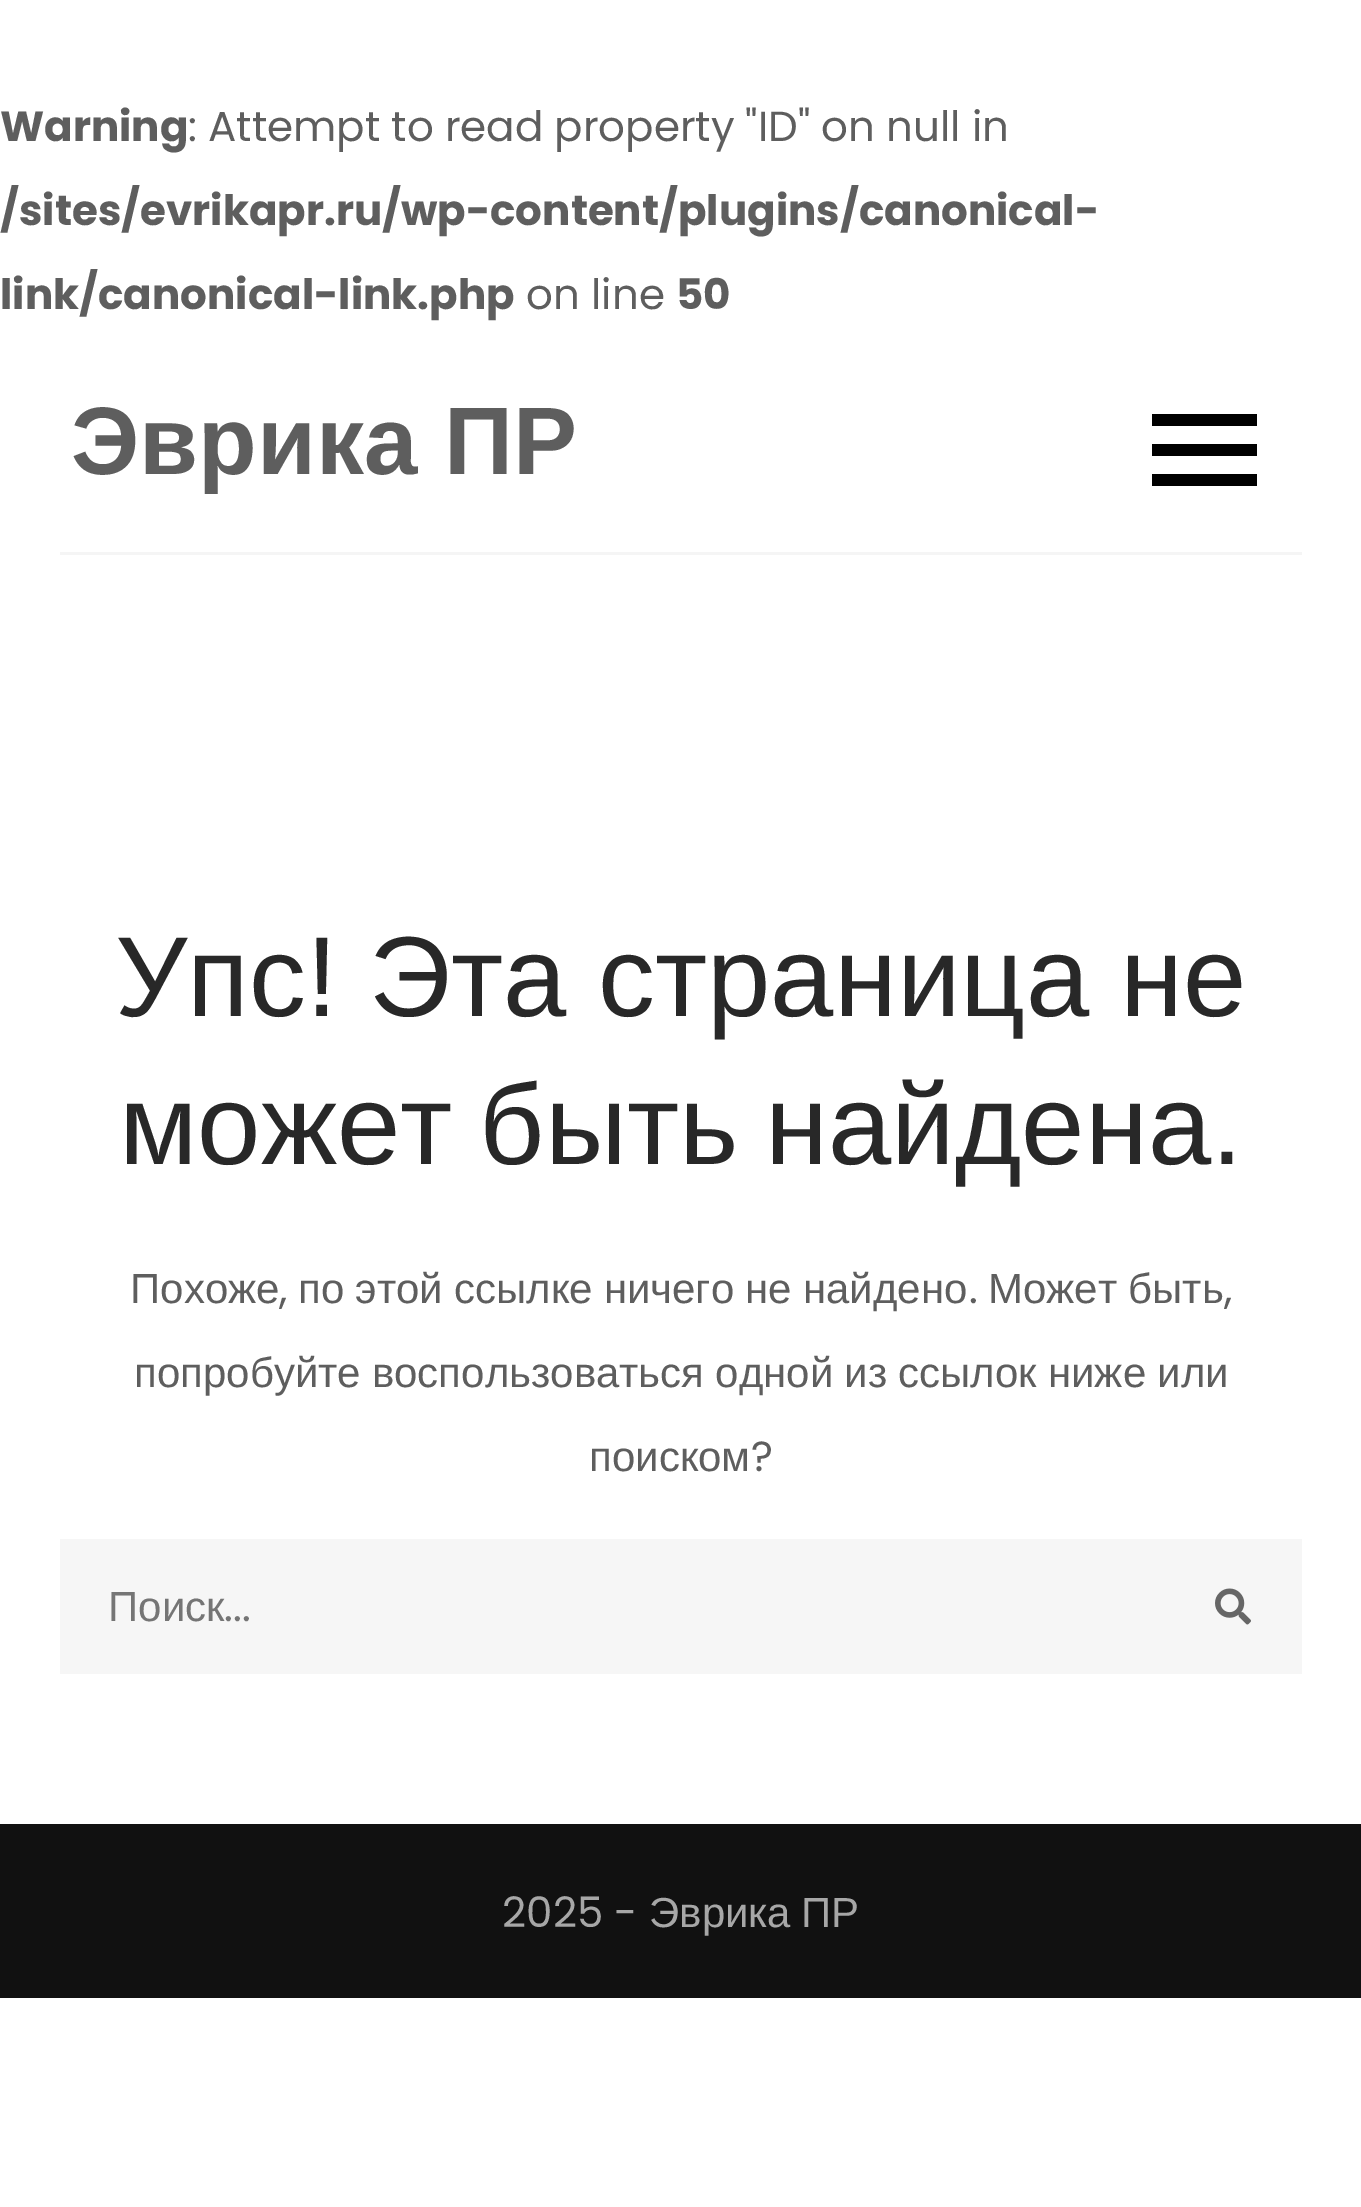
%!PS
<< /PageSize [1361 2207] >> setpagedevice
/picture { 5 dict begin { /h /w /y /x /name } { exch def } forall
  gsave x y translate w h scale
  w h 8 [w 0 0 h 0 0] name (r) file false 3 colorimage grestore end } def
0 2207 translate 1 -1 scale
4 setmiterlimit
1 setgray
0 0 1361 2207 rectfill
/Poppins-Bold [42 0 0 -42 0 0] selectfont
0.369 setgray
0 141 moveto (Warning) show
/Poppins-Regular [42 0 0 -42 0 0] selectfont
188 141 moveto (: Attempt to read property "ID" on null in) show
/Poppins-Bold [42 0 0 -42 0 0] selectfont
0 225 moveto (/sites/evrikapr.ru/wp-content/plugins/canonical-) show
0 309 moveto (link/canonical-link.php) show
/Poppins-Regular [42 0 0 -42 0 0] selectfont
526 309 moveto (on line) show
/Poppins-Bold [42 0 0 -42 0 0] selectfont
676 309 moveto (50) show
/LiberationSans-Bold [96 0 0 -96 0 0] selectfont
71 474 moveto (Эврика ПР) show
0.961 setgray
60 552 1242 3 rectfill
0 setgray
1152 444 105 12 rectfill
1152 414 105 12 rectfill
1152 474 105 12 rectfill
/LiberationSans-Regular [114 0 0 -114 0 0] selectfont
0.157 setgray
115 1016 moveto -0.5 0 32 (Упс! Эта страница не) widthshow
119 1164 moveto -5 0 32 (может быть найдена.) widthshow
/LiberationSans-Regular [42 0 0 -42 0 0] selectfont
0.369 setgray
130 1303 moveto (Похоже) show
/Poppins-Regular [42 0 0 -42 0 0] selectfont
279 1303 moveto (,) show
/LiberationSans-Regular [42 0 0 -42 0 0] selectfont
298 1303 moveto -0.5 0 32 (по этой ссылке ничего не найдено) widthshow
/Poppins-Regular [42 0 0 -42 0 0] selectfont
969 1303 moveto (.) show
/LiberationSans-Regular [42 0 0 -42 0 0] selectfont
988 1303 moveto -0.5 0 32 (Может быть) widthshow
/Poppins-Regular [42 0 0 -42 0 0] selectfont
1224 1303 moveto (,) show
/LiberationSans-Regular [42 0 0 -42 0 0] selectfont
134 1387 moveto -0.5 0 32 (попробуйте воспользоваться одной из ссылок ниже или) widthshow
589 1471 moveto (поиском) show
/Poppins-Regular [42 0 0 -42 0 0] selectfont
751 1471 moveto (?) show
0.965 setgray
60 1539 1242 135 rectfill
/LiberationSans-Regular [42 0 0 -42 0 0] selectfont
0.459 setgray
108 1621 moveto (Поиск) show
/Poppins-Regular [42 0 0 -42 0 0] selectfont
224 1621 moveto (...) show
(img1.rgb) 1215 1588 36 37 picture
0.067 setgray
0 1824 1361 174 rectfill
0.655 setgray
502 1927 moveto (2025 -) show
/LiberationSans-Regular [42 0 0 -42 0 0] selectfont
649 1927 moveto (Эврика) show
801 1927 moveto (ПР) show
showpage
